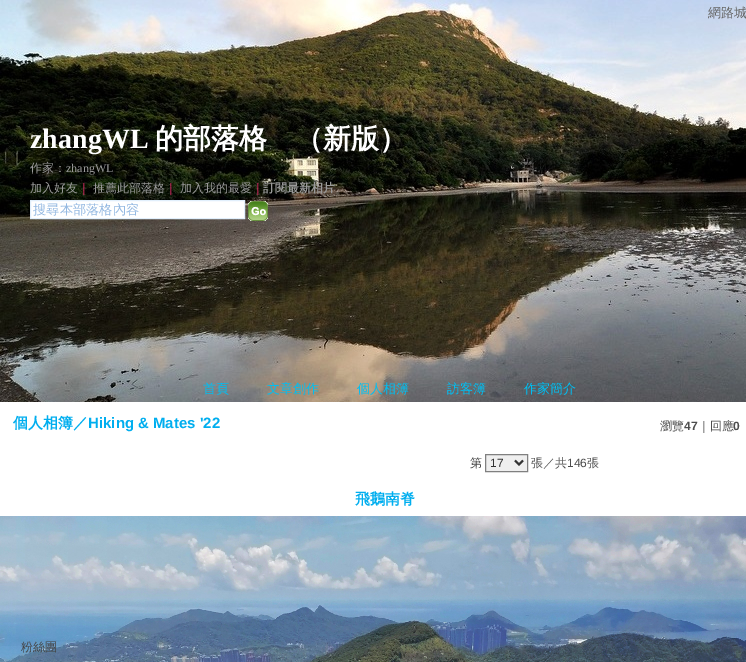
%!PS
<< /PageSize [746 662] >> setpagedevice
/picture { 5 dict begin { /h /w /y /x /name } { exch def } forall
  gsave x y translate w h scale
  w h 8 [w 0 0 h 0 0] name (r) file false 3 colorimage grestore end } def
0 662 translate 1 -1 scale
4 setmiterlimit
1 setgray
0 0 746 662 rectfill
(img1.rgb) 0 0 746 402 picture
/WenQuanYiZenHei-Medium [13 0 0 -13 0 0] selectfont
0.4 setgray
708 17 moveto (網路城) show
/LiberationSerif-Bold [28 0 0 -28 0 0] selectfont
1 setgray
30 148 moveto (zhangWL) show
/WenQuanYiZenHei-Bold [28 0 0 -28 0 0] selectfont
155 148 moveto (的部落格) show
295 148 moveto (（新版）) show
/WenQuanYiZenHei-Medium [12 0 0 -12 0 0] selectfont
0.6 setgray
30 172 moveto (作家：) show
/LiberationSerif-Regular [12 0 0 -12 0 0] selectfont
66 172 moveto (zhangWL) show
/WenQuanYiZenHei-Medium [12 0 0 -12 0 0] selectfont
30 192 moveto (加入好友) show
0.988 0.176 0.451 setrgbcolor
78 192 moveto (｜) show
0.6 setgray
93 192 moveto (推薦此部落格) show
0.988 0.176 0.451 setrgbcolor
165 192 moveto (｜) show
0.6 setgray
180 192 moveto (加入我的最愛) show
0.988 0.176 0.451 setrgbcolor
252 192 moveto (｜) show
/WenQuanYiZenHei-Bold [12 0 0 -12 0 0] selectfont
0.6 setgray
263 192 moveto (訂閱最新相片) show
1 setgray
newpath 30.5 200.5 moveto 244.5 200.5 lineto 244.5 218.5 lineto 30.5 218.5 lineto closepath gsave fill grestore
0.882 0.937 0.988 setrgbcolor
stroke
/WenQuanYiZenHei-Medium [13.25 0 0 -13.25 0 0] selectfont
0.58 0.725 0.886 setrgbcolor
33 214 moveto (搜尋本部落格內容) show
(img2.rgb) 248 201 20 20 picture
/WenQuanYiZenHei-Medium [13 0 0 -13 0 0] selectfont
0 0.749 0.953 setrgbcolor
203 393 moveto (首頁) show
267 393 moveto (文章創作) show
357 393 moveto (個人相簿) show
447 393 moveto (訪客簿) show
524 393 moveto (作家簡介) show
/WenQuanYiZenHei-Bold [15 0 0 -15 0 0] selectfont
0 0.682 0.937 setrgbcolor
13 428 moveto (個人相簿／) show
/LiberationSans-Bold [15 0 0 -15 0 0] selectfont
88 428 moveto (Hiking & Mates '22) show
/WenQuanYiZenHei-Medium [12 0 0 -12 0 0] selectfont
0.302 setgray
660 430 moveto (瀏覽) show
/LiberationSans-Bold [12 0 0 -12 0 0] selectfont
684 430 moveto (47) show
/WenQuanYiZenHei-Medium [12 0 0 -12 0 0] selectfont
698 430 moveto (｜回應) show
/LiberationSans-Bold [12 0 0 -12 0 0] selectfont
733 430 moveto (0) show
/WenQuanYiZenHei-Medium [12 0 0 -12 0 0] selectfont
470 467 moveto (第) show
0.937 setgray
newpath 485.5 454.5 moveto 527.5 454.5 lineto 527.5 471.5 lineto 485.5 471.5 lineto closepath gsave fill grestore
0.502 setgray
stroke
0.2 setgray
2 setlinewidth
newpath 515 460.5 moveto 519 464.5 lineto 523 460.5 lineto stroke
/LiberationSans-Regular [12 0 0 -12 0 0] selectfont
490 467 moveto (17) show
/WenQuanYiZenHei-Medium [12 0 0 -12 0 0] selectfont
0.302 setgray
531 467 moveto (張／共) show
/LiberationSans-Regular [12 0 0 -12 0 0] selectfont
567 467 moveto (146) show
/WenQuanYiZenHei-Medium [12 0 0 -12 0 0] selectfont
587 467 moveto (張) show
/WenQuanYiZenHei-Bold [15 0 0 -15 0 0] selectfont
0 0.682 0.937 setrgbcolor
355 504 moveto (飛鵝南脊) show
(img3.rgb) 0 516 746 146 picture
/WenQuanYiZenHei-Medium [12 0 0 -12 0 0] selectfont
0.267 setgray
21 651 moveto (粉絲團) show
showpage
